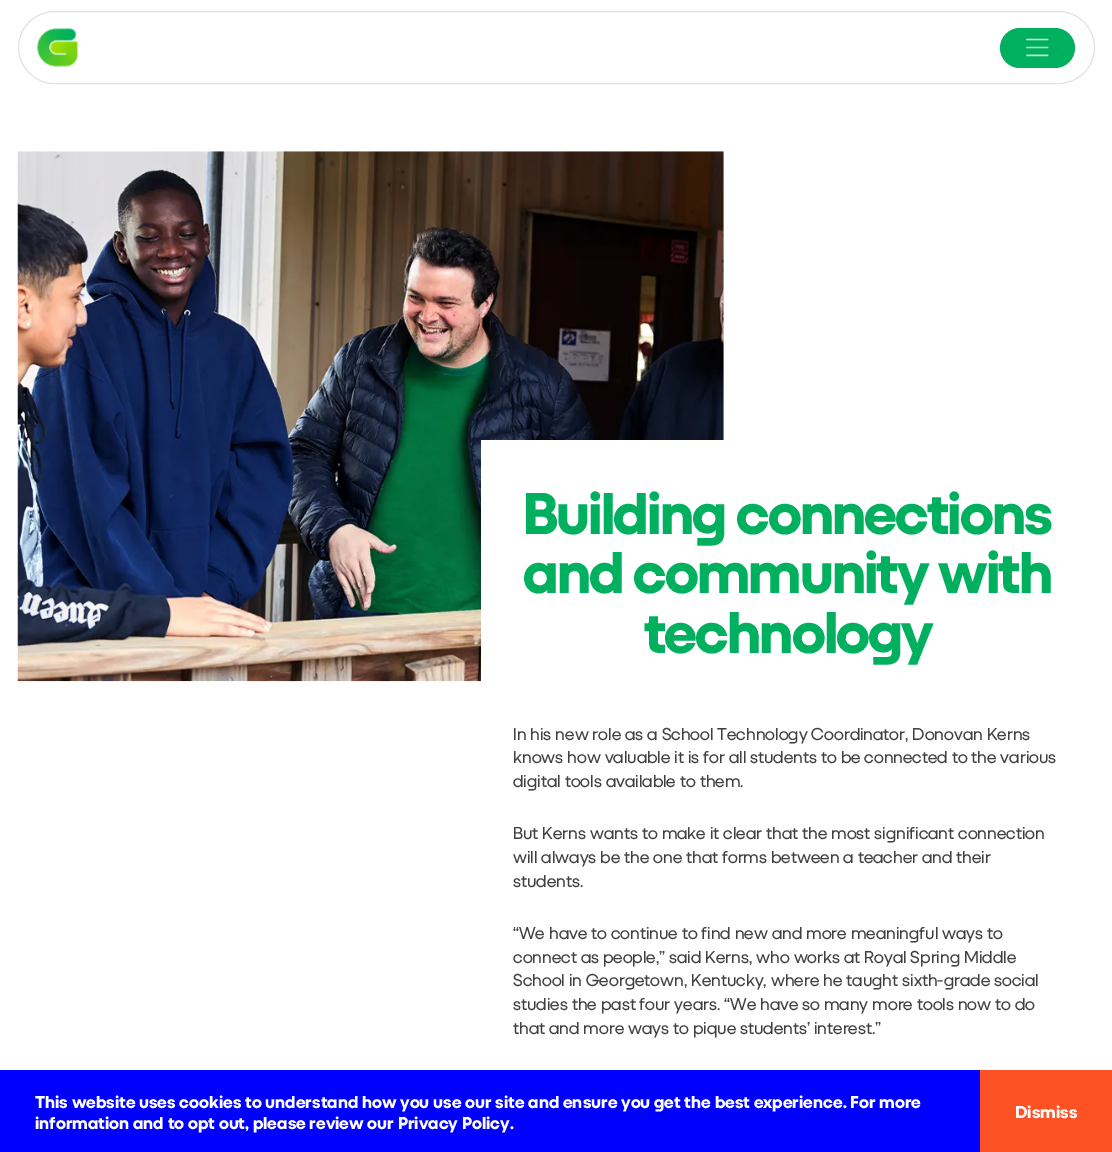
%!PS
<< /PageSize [1112 1152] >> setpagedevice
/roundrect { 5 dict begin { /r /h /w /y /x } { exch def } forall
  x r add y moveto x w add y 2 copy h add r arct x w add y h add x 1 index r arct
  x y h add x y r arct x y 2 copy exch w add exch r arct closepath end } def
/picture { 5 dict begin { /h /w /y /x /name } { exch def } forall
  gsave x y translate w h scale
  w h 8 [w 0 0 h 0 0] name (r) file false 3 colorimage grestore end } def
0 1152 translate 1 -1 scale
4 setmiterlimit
1 setgray
0 0 1112 1152 rectfill
0.898 0.886 0.875 setrgbcolor
18.5 11.5 1076 72 36 roundrect stroke
(img1.rgb) 37 28 42 39 picture
0 0.69 0.369 setrgbcolor
1000 28 75 40 20 roundrect fill
(img2.rgb) 1026 38 24 19 picture
(img3.rgb) 17 151 707 531 picture
1 setgray
481 440 243 242 rectfill
/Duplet-Bold [59.5 0 0 -59.5 0 0] selectfont
0 0.69 0.369 setrgbcolor
523 534 moveto -1.9 0 (Building connections) ashow
523 593 moveto -1.9 0 (and community with) ashow
644 653 moveto -1.9 0 (technology) ashow
/Duplet-Regular [17.5 0 0 -17.5 0 0] selectfont
0.251 setgray
513 740 moveto (In his new role as a School Technology Coordinator, Donovan Kerns) show
513 763 moveto (knows how valuable it is for all students to be connected to the various) show
513 787 moveto (digital tools available to them.) show
513 839 moveto (But Kerns wants to make it clear that the most significant connection) show
513 863 moveto (will always be the one that forms between a teacher and their) show
513 887 moveto (students.) show
513 939 moveto (“We have to continue to find new and more meaningful ways to) show
513 963 moveto (connect as people,” said Kerns, who works at Royal Spring Middle) show
513 986 moveto (School in Georgetown, Kentucky, where he taught sixth-grade social) show
513 1010 moveto (studies the past four years. “We have so many more tools now to do) show
513 1034 moveto (that and more ways to pique students’ interest.”) show
0 0 1 setrgbcolor
0 1070 980 82 rectfill
/Duplet-Bold [17.5 0 0 -17.5 0 0] selectfont
1 setgray
35 1108 moveto (This website uses cookies to understand how you use our site and ensure you get the best experience. For more) show
35 1129 moveto (information and to opt out, please review our Privacy Policy.) show
1 0.322 0.141 setrgbcolor
980 1070 132 82 rectfill
1 setgray
1015 1118 moveto (Dismiss) show
showpage
